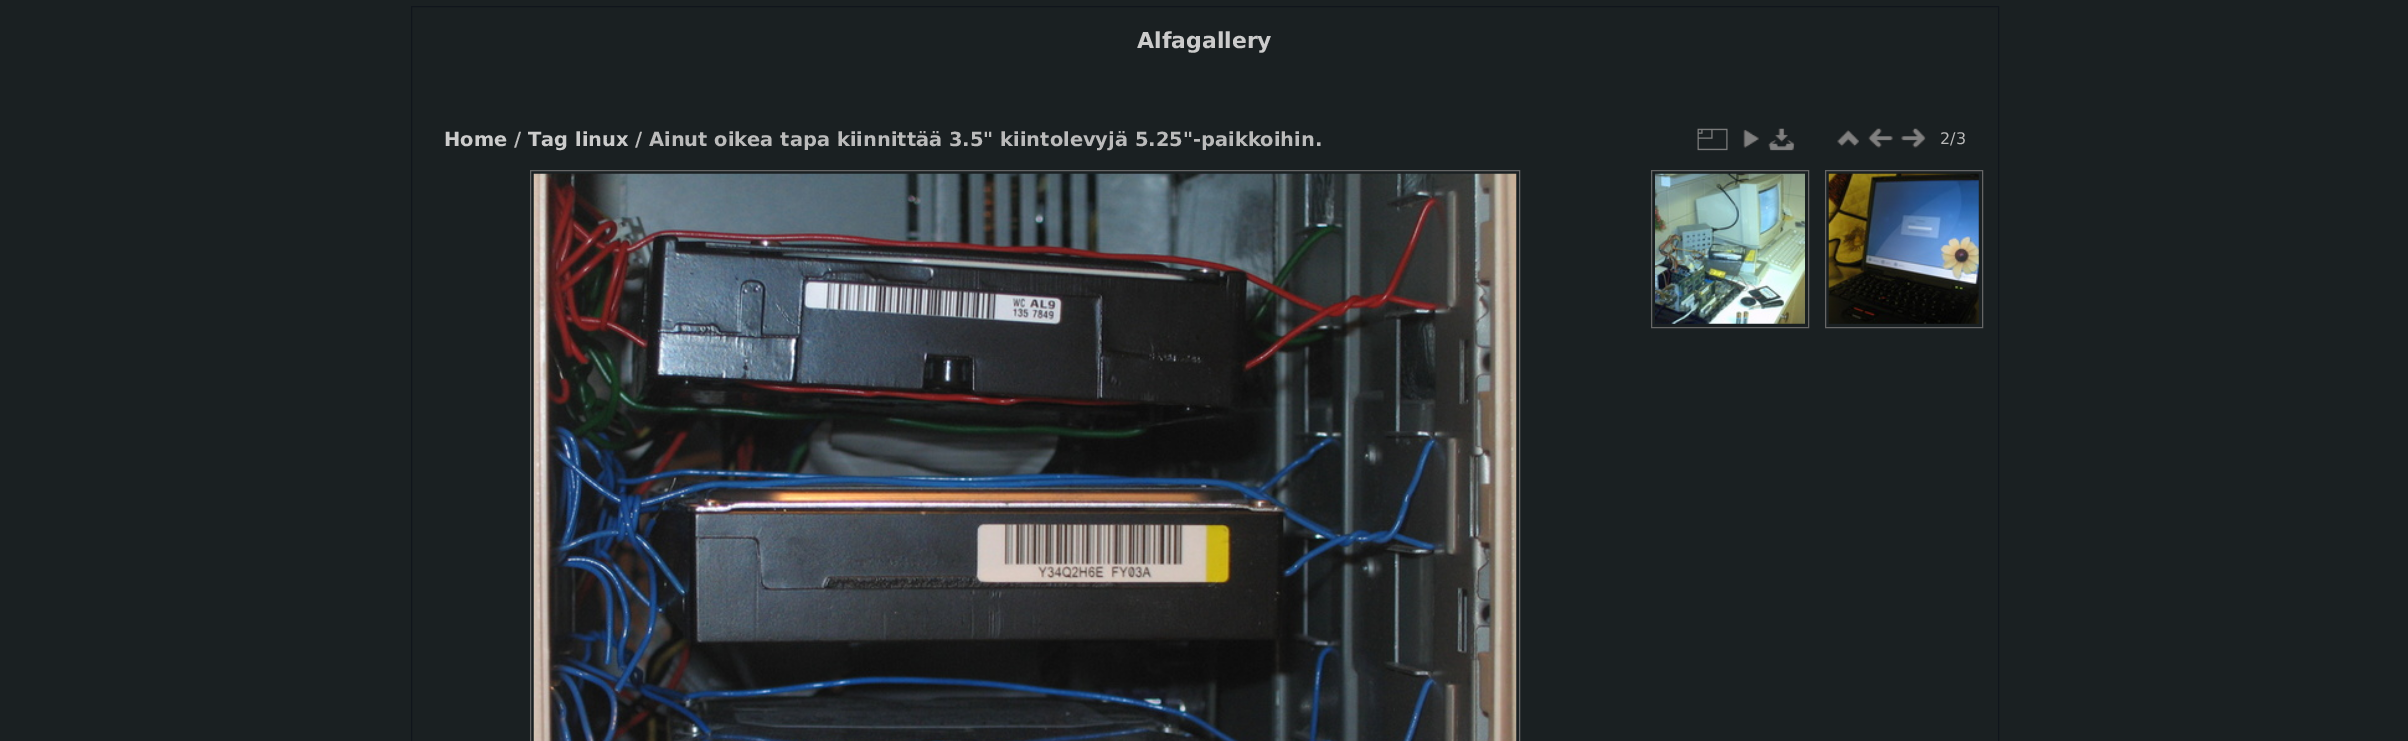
%!PS
<< /PageSize [2408 741] >> setpagedevice
/picture { 5 dict begin { /h /w /y /x /name } { exch def } forall
  gsave x y translate w h scale
  w h 8 [w 0 0 h 0 0] name (r) file false 3 colorimage grestore end } def
0 741 translate 1 -1 scale
4 setmiterlimit
0.102 0.125 0.133 setrgbcolor
0 0 2408 741 rectfill
0.063 0.082 0.11 setrgbcolor
411.5 6.5 1587 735 rectstroke
/DejaVuSans-Bold [22 0 0 -22 0 0] selectfont
0.8 setgray
1137 48 moveto (Alfagallery) show
/DejaVuSans-Bold [19.45 0 0 -19.45 0 0] selectfont
444 146 moveto (Home) show
0.733 setgray
514 146 moveto (/) show
0.8 setgray
528 146 moveto (Tag linux) show
0.733 setgray
635 146 moveto (/ Ainut oikea tapa kiinnittää 3.5" kiintolevyjä 5.25"-paikkoihin.) show
(img1.rgb) 1697 128 31 23 picture
(img2.rgb) 1743 129 16 19 picture
(img3.rgb) 1768 128 27 23 picture
(img4.rgb) 1837 130 22 17 picture
(img5.rgb) 1868 128 25 20 picture
(img6.rgb) 1901 128 25 20 picture
/DejaVuSans-Regular [16 0 0 -16 0 0] selectfont
1940 144 moveto (2/3) show
0.4 setgray
530.5 170.5 989 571 rectstroke
1651.5 170.5 157 157 rectstroke
(img7.rgb) 1655 173 150 151 picture
1825.5 170.5 157 157 rectstroke
(img8.rgb) 1828 173 151 151 picture
(img9.rgb) 533 173 984 568 picture
showpage
